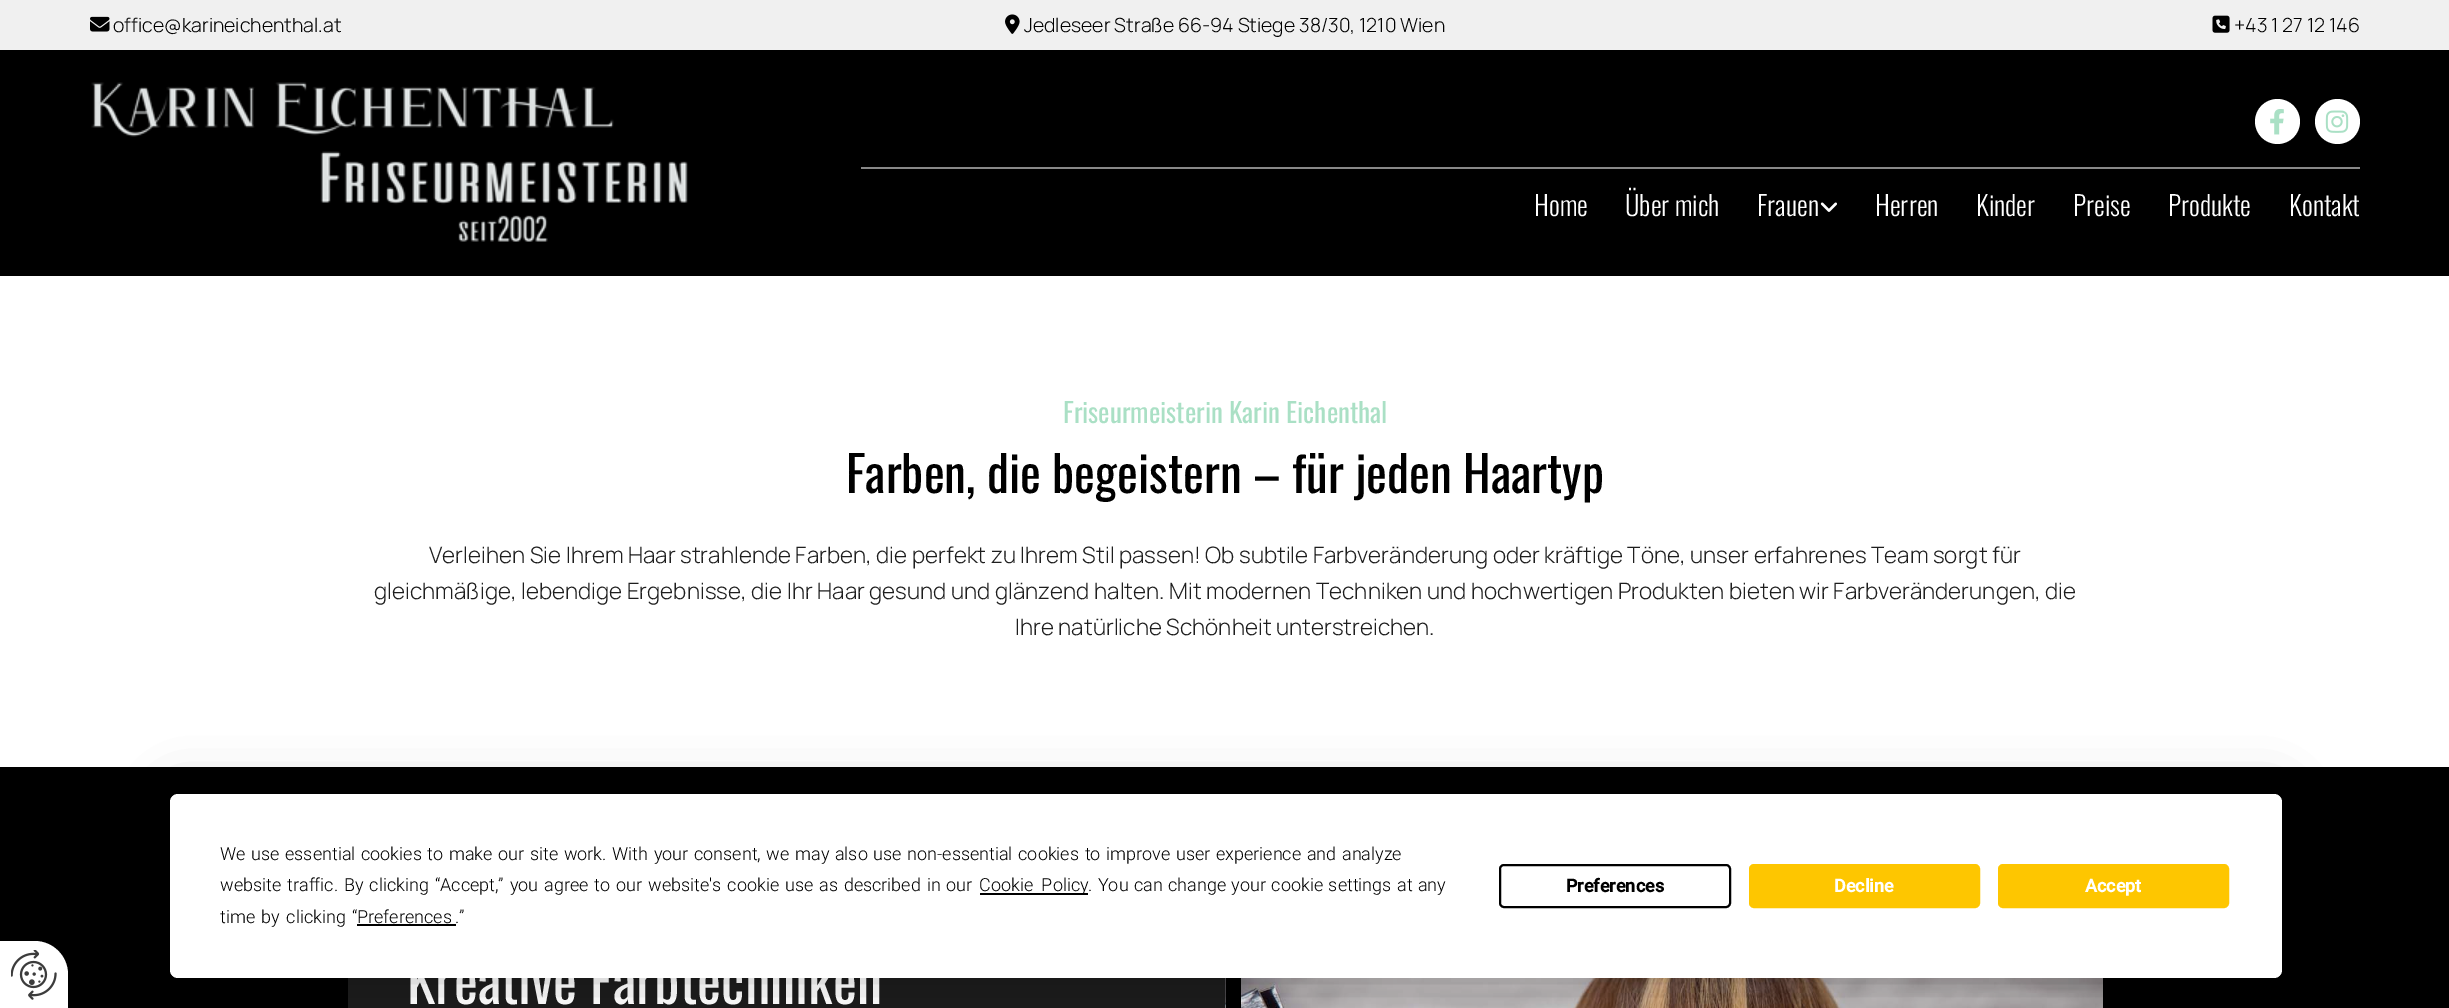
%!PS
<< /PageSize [2449 1008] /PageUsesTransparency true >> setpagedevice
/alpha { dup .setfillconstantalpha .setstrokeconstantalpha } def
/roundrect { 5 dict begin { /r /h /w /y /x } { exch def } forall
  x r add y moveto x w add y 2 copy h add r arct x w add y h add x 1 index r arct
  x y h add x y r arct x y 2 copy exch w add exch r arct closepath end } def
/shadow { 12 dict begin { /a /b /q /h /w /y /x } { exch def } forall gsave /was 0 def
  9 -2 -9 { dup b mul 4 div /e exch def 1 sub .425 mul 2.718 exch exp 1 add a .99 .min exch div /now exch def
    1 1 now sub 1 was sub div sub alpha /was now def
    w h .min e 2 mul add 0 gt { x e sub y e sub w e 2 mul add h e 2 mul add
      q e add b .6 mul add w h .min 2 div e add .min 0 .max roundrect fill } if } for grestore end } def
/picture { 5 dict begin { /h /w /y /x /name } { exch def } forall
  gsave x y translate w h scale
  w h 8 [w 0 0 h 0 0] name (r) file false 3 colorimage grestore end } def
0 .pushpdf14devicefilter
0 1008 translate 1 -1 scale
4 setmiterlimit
0 setgray
0 0 2449 1008 rectfill
0.941 setgray
0 0 2449 50 rectfill
(img1.rgb) 90 16 20 16 picture
/Manrope-Light [19.5 0 0 -19.5 0 0] selectfont
0 setgray
113 32 moveto (office@karineichenthal.at) show
(img2.rgb) 1005 14 15 20 picture
1024 32 moveto (Jedleseer Straße 66-94 Stiege 38/30, 1210 Wien) show
(img3.rgb) 2212 15 18 18 picture
2234 32 moveto (+43 1 27 12 146) show
(img4.rgb) 91 82 597 160 picture
1 setgray
newpath 2277.5 121.5 22.5 0 360 arc closepath fill
(img5.rgb) 2270 109 14 26 picture
newpath 2337.5 121.5 22.5 0 360 arc closepath fill
(img6.rgb) 2325 110 24 23 picture
0.533 setgray
861 167 1499 2 rectfill
/Oswald-Light [27 0 0 -27 0 0] selectfont
1 setgray
1534 216 moveto (Home) show
1625 216 moveto (Über mich) show
1757 216 moveto (Frauen) show
(img7.rgb) 1820 202 17 10 picture
1875 216 moveto (Herren) show
1976 216 moveto (Kinder) show
2073 216 moveto (Preise) show
2168 216 moveto (Produkte) show
2289 216 moveto (Kontakt) show
0 276 2449 491 rectfill
/Oswald-Regular [27 0 0 -27 0 0] selectfont
0.667 0.878 0.773 setrgbcolor
1063 423 moveto (Friseurmeisterin Karin Eichenthal) show
/Oswald-Regular [49.5 0 0 -49.5 0 0] selectfont
0 setgray
846 493 moveto (Farben, die begeistern – für jeden Haartyp) show
/Manrope-Light [22.5 0 0 -22.5 0 0] selectfont
0.118 setgray
429 563 moveto (Verleihen Sie Ihrem Haar strahlende Farben, die perfekt zu Ihrem Stil passen! Ob subtile Farbveränderung oder kräftige Töne, unser erfahrenes Team sorgt für) show
374 599 moveto (gleichmäßige, lebendige Ergebnisse, die Ihr Haar gesund und glänzend halten. Mit modernen Techniken und hochwertigen Produkten bieten wir Farbveränderungen, die) show
1015 635 moveto (Ihre natürliche Schönheit unterstreichen.) show
0.11 setgray
348 978 878 30 rectfill
/Oswald-Regular [57 0 0 -57 0 0] selectfont
1 setgray
407 1004 moveto (Kreative Farbtechniken) show
(img8.rgb) 1225 978 878 30 picture
0 setgray
1226 978 15 30 rectfill
170 794 2112 184 8 26 0.25 shadow
1 setgray
170 794 2112 184 8 roundrect fill
/Roboto-Light [18 0 0 -18 0 0] selectfont
0 setgray
220 860 moveto 1.25 0 32 (We use essential cookies to make our site work. With your consent, we may also use non-essential cookies to improve user experience and analyze) widthshow
220 891 moveto 1.5 0 32 (website traffic. By clicking “Accept,” you agree to our website's cookie use as described in our) widthshow
980 893 108 2 rectfill
979 891 moveto 4 0 32 (Cookie Policy) widthshow
1088 891 moveto 1 0 32 (. You can change your cookie settings at any) widthshow
220 923 moveto 2 0 32 (time by clicking “) widthshow
357 923 moveto (Preferences) show
357 924 99 2 rectfill
455 923 moveto (.”) show
2 setlinewidth
1500 865 230 42 4 roundrect stroke
/Roboto-Bold [18 0 0 -18 0 0] selectfont
1566 892 moveto (Preferences) show
0.996 0.776 0 setrgbcolor
1750 865 229 42 4 roundrect gsave fill grestore
stroke
1 setgray
1834 892 moveto (Decline) show
0.996 0.776 0 setrgbcolor
1999 865 229 42 4 roundrect gsave fill grestore
stroke
1 setgray
2085 892 moveto (Accept) show
newpath 0 941 moveto 34.5 941 lineto 53 941 68 956 68 974.5 curveto 68 1008 lineto 0 1008 lineto closepath fill
(img9.rgb) 11 950 46 50 picture
.poppdf14devicefilter showpage
